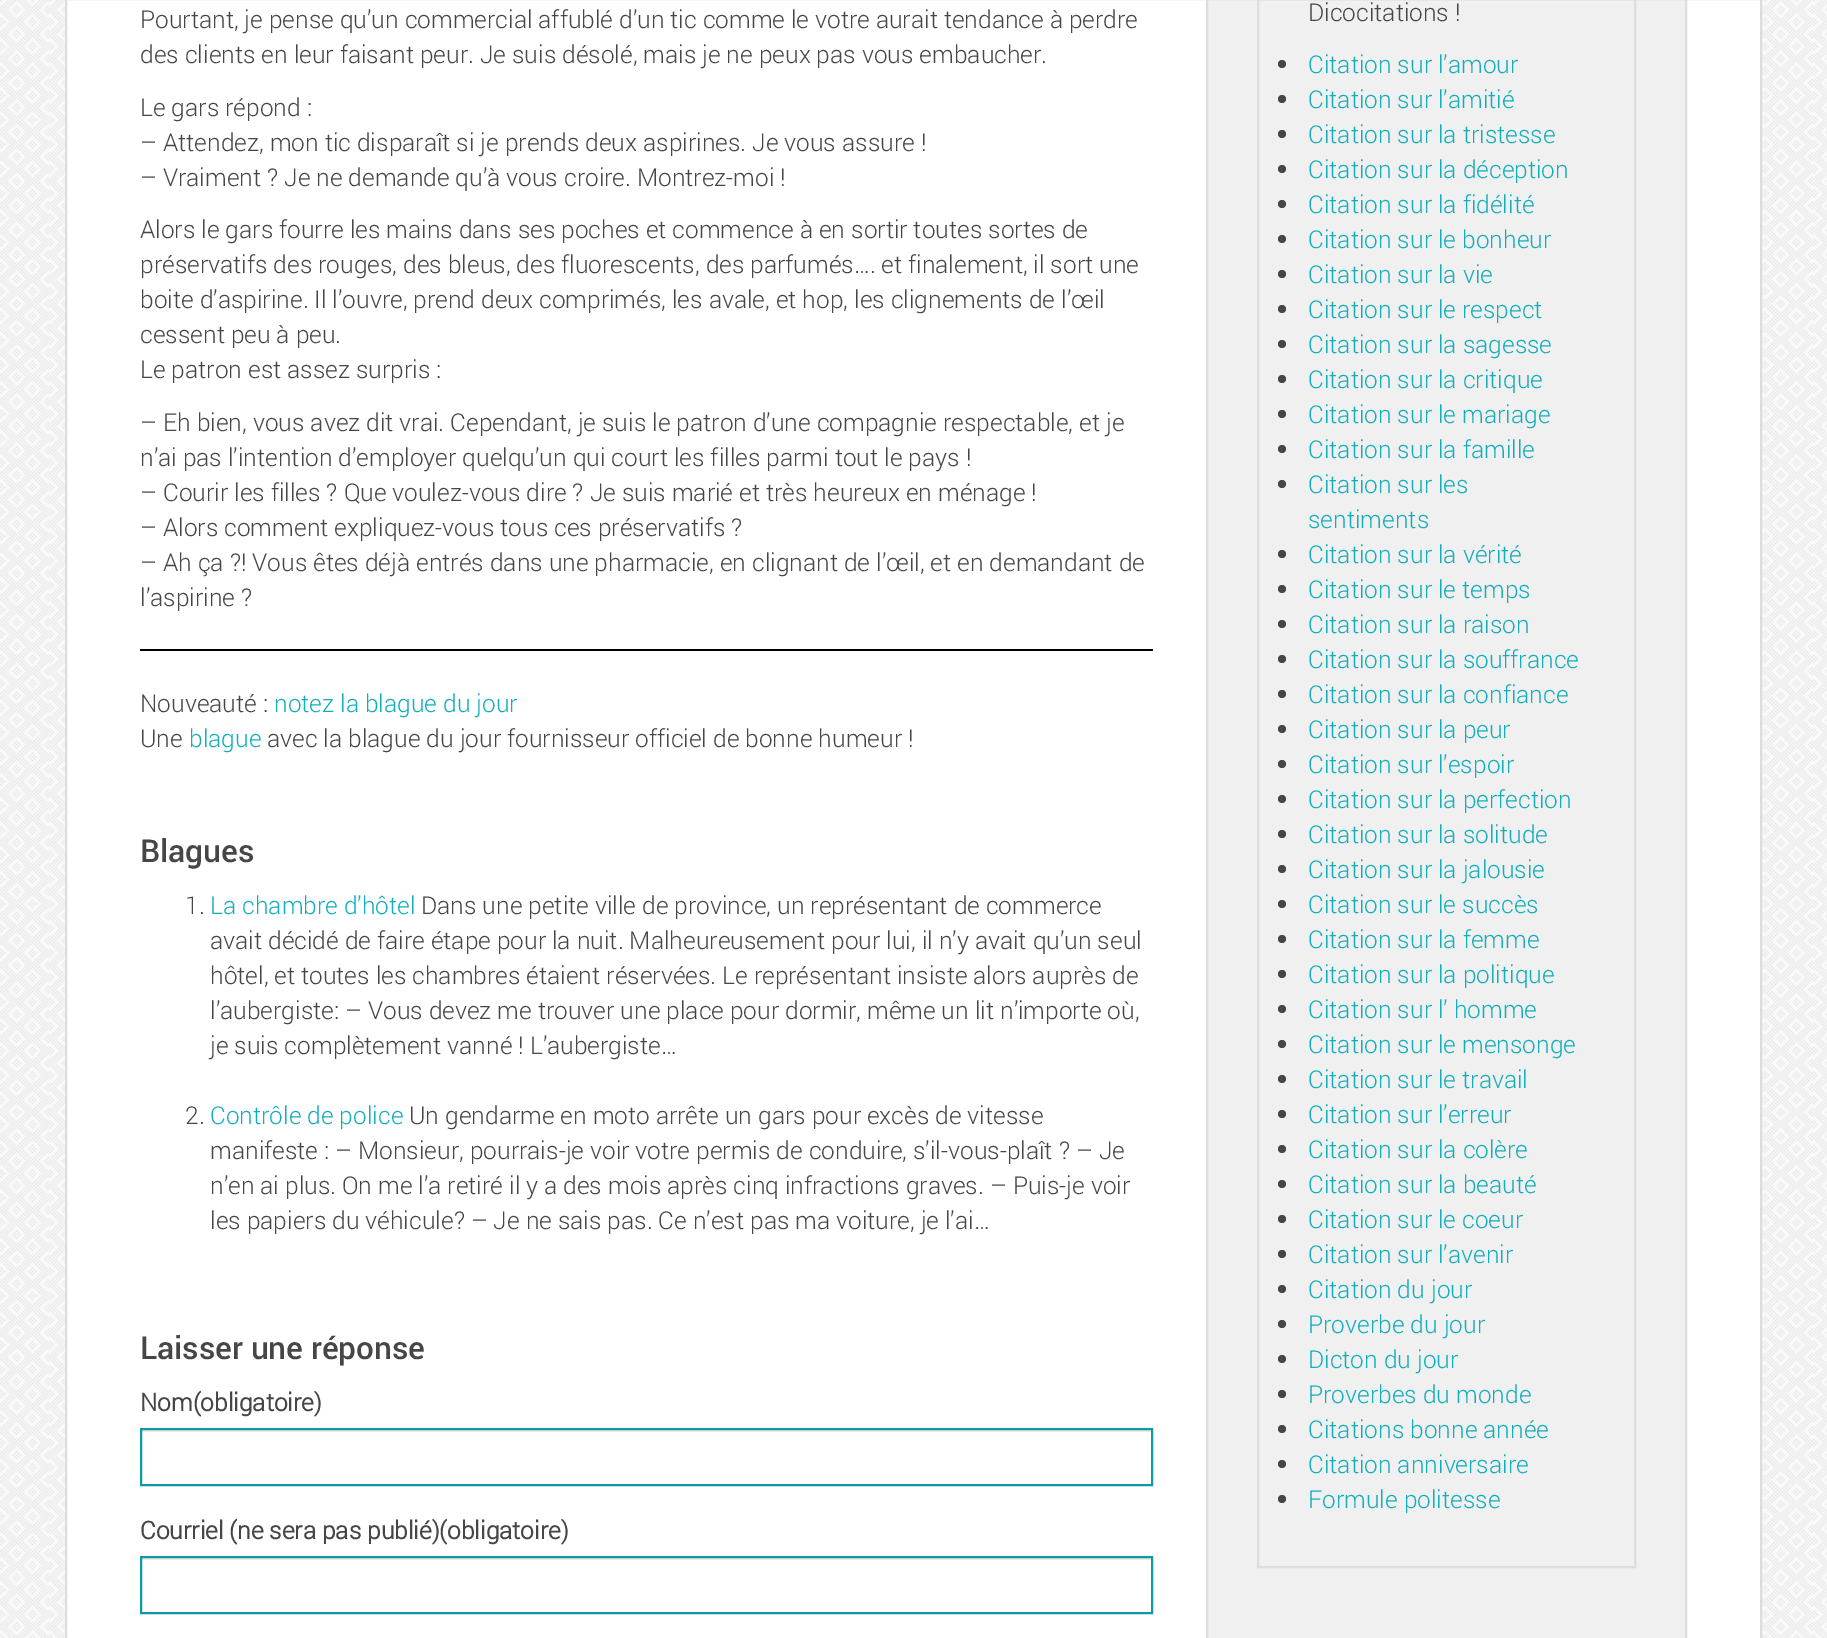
%!PS
<< /PageSize [1827 1638] >> setpagedevice
/picture { 5 dict begin { /h /w /y /x /name } { exch def } forall
  gsave x y translate w h scale
  w h 8 [w 0 0 h 0 0] name (r) file false 3 colorimage grestore end } def
0 1638 translate 1 -1 scale
4 setmiterlimit
1 setgray
0 0 1827 1638 rectfill
(img1.rgb) 0 0 1827 1638 picture
newpath 66 -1 moveto 1761 -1 lineto 1761 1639 lineto 66 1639 lineto closepath gsave fill grestore
0.867 setgray
2 setlinewidth
stroke
/Roboto-Light [24.5 0 0 -24.5 0 0] selectfont
0.275 setgray
140 28 moveto (Pourtant, je pense qu’un commercial affublé d’un tic comme le votre aurait tendance à perdre) show
140 63 moveto (des clients en leur faisant peur. Je suis désolé, mais je ne peux pas vous embaucher.) show
140 116 moveto (Le gars répond :) show
140 151 moveto (– Attendez, mon tic disparaît si je prends deux aspirines. Je vous assure !) show
140 186 moveto (– Vraiment ? Je ne demande qu’à vous croire. Montrez-moi !) show
140 238 moveto (Alors le gars fourre les mains dans ses poches et commence à en sortir toutes sortes de) show
140 273 moveto (préservatifs des rouges, des bleus, des fluorescents, des parfumés…. et finalement, il sort une) show
140 308 moveto (boite d’aspirine. Il l’ouvre, prend deux comprimés, les avale, et hop, les clignements de l’œil) show
140 343 moveto (cessent peu à peu.) show
140 378 moveto (Le patron est assez surpris :) show
140 431 moveto (– Eh bien, vous avez dit vrai. Cependant, je suis le patron d’une compagnie respectable, et je) show
140 466 moveto (n’ai pas l’intention d’employer quelqu’un qui court les filles parmi tout le pays !) show
140 501 moveto (– Courir les filles ? Que voulez-vous dire ? Je suis marié et très heureux en ménage !) show
140 536 moveto (– Alors comment expliquez-vous tous ces préservatifs ?) show
140 571 moveto (– Ah ça ?! Vous êtes déjà entrés dans une pharmacie, en clignant de l’œil, et en demandant de) show
140 606 moveto (l’aspirine ?) show
0 setgray
140 649 1013 2 rectfill
0.275 setgray
140 712 moveto (Nouveauté :) show
0.071 0.682 0.733 setrgbcolor
274 712 moveto (notez la blague du jour) show
0.275 setgray
140 747 moveto (Une) show
0.071 0.682 0.733 setrgbcolor
189 747 moveto (blague) show
0.275 setgray
267 747 moveto (avec la blague du jour fournisseur officiel de bonne humeur !) show
/Roboto-Medium [31.5 0 0 -31.5 0 0] selectfont
140 862 moveto (Blagues) show
/Roboto-Light [24.5 0 0 -24.5 0 0] selectfont
185 914 moveto (1.) show
0.071 0.682 0.733 setrgbcolor
210 914 moveto (La chambre d’hôtel) show
0.275 setgray
421 914 moveto (Dans une petite ville de province, un représentant de commerce) show
210 949 moveto (avait décidé de faire étape pour la nuit. Malheureusement pour lui, il n’y avait qu’un seul) show
210 984 moveto (hôtel, et toutes les chambres étaient réservées. Le représentant insiste alors auprès de) show
210 1019 moveto (l’aubergiste: – Vous devez me trouver une place pour dormir, même un lit n’importe où,) show
210 1054 moveto (je suis complètement vanné ! L’aubergiste…) show
185 1124 moveto (2.) show
0.071 0.682 0.733 setrgbcolor
210 1124 moveto (Contrôle de police) show
0.275 setgray
409 1124 moveto (Un gendarme en moto arrête un gars pour excès de vitesse) show
210 1159 moveto (manifeste : – Monsieur, pourrais-je voir votre permis de conduire, s’il-vous-plaît ? – Je) show
210 1194 moveto (n’en ai plus. On me l’a retiré il y a des mois après cinq infractions graves. – Puis-je voir) show
210 1229 moveto (les papiers du véhicule? – Je ne sais pas. Ce n’est pas ma voiture, je l’ai…) show
/Roboto-Medium [31.5 0 0 -31.5 0 0] selectfont
140 1359 moveto (Laisser une réponse) show
/Roboto-Bold [24.5 0 0 -24.5 0 0] selectfont
140 1411 moveto (Nom\(obligatoire\)) show
0.925 setgray
142 1430 1010 2 rectfill
0.063 0.596 0.643 setrgbcolor
141 1429 1011 56 rectstroke
0.275 setgray
140 1539 moveto (Courriel \(ne sera pas publié\)\(obligatoire\)) show
0.925 setgray
142 1558 1010 2 rectfill
0.063 0.596 0.643 setrgbcolor
141 1557 1011 56 rectstroke
0.941 setgray
newpath 1207 -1 moveto 1686 -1 lineto 1686 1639 lineto 1207 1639 lineto closepath gsave fill grestore
0.867 setgray
stroke
1258 -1 377 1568 rectstroke
/Roboto-Light [24.5 0 0 -24.5 0 0] selectfont
0.275 setgray
1308 21 moveto (Dicocitations !) show
newpath 1282 64 4 0 360 arc closepath fill
0.071 0.682 0.733 setrgbcolor
1308 73 moveto (Citation sur l’amour) show
0.275 setgray
newpath 1282 99 4 0 360 arc closepath fill
0.071 0.682 0.733 setrgbcolor
1308 108 moveto (Citation sur l’amitié) show
0.275 setgray
newpath 1282 134 4 0 360 arc closepath fill
0.071 0.682 0.733 setrgbcolor
1308 143 moveto (Citation sur la tristesse) show
0.275 setgray
newpath 1282 169 4 0 360 arc closepath fill
0.071 0.682 0.733 setrgbcolor
1308 178 moveto (Citation sur la déception) show
0.275 setgray
newpath 1282 204 4 0 360 arc closepath fill
0.071 0.682 0.733 setrgbcolor
1308 213 moveto (Citation sur la fidélité) show
0.275 setgray
newpath 1282 239 4 0 360 arc closepath fill
0.071 0.682 0.733 setrgbcolor
1308 248 moveto (Citation sur le bonheur) show
0.275 setgray
newpath 1282 274 4 0 360 arc closepath fill
0.071 0.682 0.733 setrgbcolor
1308 283 moveto (Citation sur la vie) show
0.275 setgray
newpath 1282 309 4 0 360 arc closepath fill
0.071 0.682 0.733 setrgbcolor
1308 318 moveto (Citation sur le respect) show
0.275 setgray
newpath 1282 344 4 0 360 arc closepath fill
0.071 0.682 0.733 setrgbcolor
1308 353 moveto (Citation sur la sagesse) show
0.275 setgray
newpath 1282 379 4 0 360 arc closepath fill
0.071 0.682 0.733 setrgbcolor
1308 388 moveto (Citation sur la critique) show
0.275 setgray
newpath 1282 414 4 0 360 arc closepath fill
0.071 0.682 0.733 setrgbcolor
1308 423 moveto (Citation sur le mariage) show
0.275 setgray
newpath 1282 449 4 0 360 arc closepath fill
0.071 0.682 0.733 setrgbcolor
1308 458 moveto (Citation sur la famille) show
0.275 setgray
newpath 1282 484 4 0 360 arc closepath fill
0.071 0.682 0.733 setrgbcolor
1308 493 moveto (Citation sur les) show
1308 528 moveto (sentiments) show
0.275 setgray
newpath 1282 554 4 0 360 arc closepath fill
0.071 0.682 0.733 setrgbcolor
1308 563 moveto (Citation sur la vérité) show
0.275 setgray
newpath 1282 589 4 0 360 arc closepath fill
0.071 0.682 0.733 setrgbcolor
1308 598 moveto (Citation sur le temps) show
0.275 setgray
newpath 1282 624 4 0 360 arc closepath fill
0.071 0.682 0.733 setrgbcolor
1308 633 moveto (Citation sur la raison) show
0.275 setgray
newpath 1282 659 4 0 360 arc closepath fill
0.071 0.682 0.733 setrgbcolor
1308 668 moveto (Citation sur la souffrance) show
0.275 setgray
newpath 1282 694 4 0 360 arc closepath fill
0.071 0.682 0.733 setrgbcolor
1308 703 moveto (Citation sur la confiance) show
0.275 setgray
newpath 1282 729 4 0 360 arc closepath fill
0.071 0.682 0.733 setrgbcolor
1308 738 moveto (Citation sur la peur) show
0.275 setgray
newpath 1282 764 4 0 360 arc closepath fill
0.071 0.682 0.733 setrgbcolor
1308 773 moveto (Citation sur l’espoir) show
0.275 setgray
newpath 1282 799 4 0 360 arc closepath fill
0.071 0.682 0.733 setrgbcolor
1308 808 moveto (Citation sur la perfection) show
0.275 setgray
newpath 1282 834 4 0 360 arc closepath fill
0.071 0.682 0.733 setrgbcolor
1308 843 moveto (Citation sur la solitude) show
0.275 setgray
newpath 1282 869 4 0 360 arc closepath fill
0.071 0.682 0.733 setrgbcolor
1308 878 moveto (Citation sur la jalousie) show
0.275 setgray
newpath 1282 904 4 0 360 arc closepath fill
0.071 0.682 0.733 setrgbcolor
1308 913 moveto (Citation sur le succès) show
0.275 setgray
newpath 1282 939 4 0 360 arc closepath fill
0.071 0.682 0.733 setrgbcolor
1308 948 moveto (Citation sur la femme) show
0.275 setgray
newpath 1282 974 4 0 360 arc closepath fill
0.071 0.682 0.733 setrgbcolor
1308 983 moveto (Citation sur la politique) show
0.275 setgray
newpath 1282 1009 4 0 360 arc closepath fill
0.071 0.682 0.733 setrgbcolor
1308 1018 moveto (Citation sur l’ homme) show
0.275 setgray
newpath 1282 1044 4 0 360 arc closepath fill
0.071 0.682 0.733 setrgbcolor
1308 1053 moveto (Citation sur le mensonge) show
0.275 setgray
newpath 1282 1079 4 0 360 arc closepath fill
0.071 0.682 0.733 setrgbcolor
1308 1088 moveto (Citation sur le travail) show
0.275 setgray
newpath 1282 1114 4 0 360 arc closepath fill
0.071 0.682 0.733 setrgbcolor
1308 1123 moveto (Citation sur l’erreur) show
0.275 setgray
newpath 1282 1149 4 0 360 arc closepath fill
0.071 0.682 0.733 setrgbcolor
1308 1158 moveto (Citation sur la colère) show
0.275 setgray
newpath 1282 1184 4 0 360 arc closepath fill
0.071 0.682 0.733 setrgbcolor
1308 1193 moveto (Citation sur la beauté) show
0.275 setgray
newpath 1282 1219 4 0 360 arc closepath fill
0.071 0.682 0.733 setrgbcolor
1308 1228 moveto (Citation sur le coeur) show
0.275 setgray
newpath 1282 1254 4 0 360 arc closepath fill
0.071 0.682 0.733 setrgbcolor
1308 1263 moveto (Citation sur l’avenir) show
0.275 setgray
newpath 1282 1289 4 0 360 arc closepath fill
0.071 0.682 0.733 setrgbcolor
1308 1298 moveto (Citation du jour) show
0.275 setgray
newpath 1282 1324 4 0 360 arc closepath fill
0.071 0.682 0.733 setrgbcolor
1308 1333 moveto (Proverbe du jour) show
0.275 setgray
newpath 1282 1359 4 0 360 arc closepath fill
0.071 0.682 0.733 setrgbcolor
1308 1368 moveto (Dicton du jour) show
0.275 setgray
newpath 1282 1394 4 0 360 arc closepath fill
0.071 0.682 0.733 setrgbcolor
1308 1403 moveto (Proverbes du monde) show
0.275 setgray
newpath 1282 1429 4 0 360 arc closepath fill
0.071 0.682 0.733 setrgbcolor
1308 1438 moveto (Citations bonne année) show
0.275 setgray
newpath 1282 1464 4 0 360 arc closepath fill
0.071 0.682 0.733 setrgbcolor
1308 1473 moveto (Citation anniversaire) show
0.275 setgray
newpath 1282 1499 4 0 360 arc closepath fill
0.071 0.682 0.733 setrgbcolor
1308 1508 moveto (Formule politesse) show
showpage
